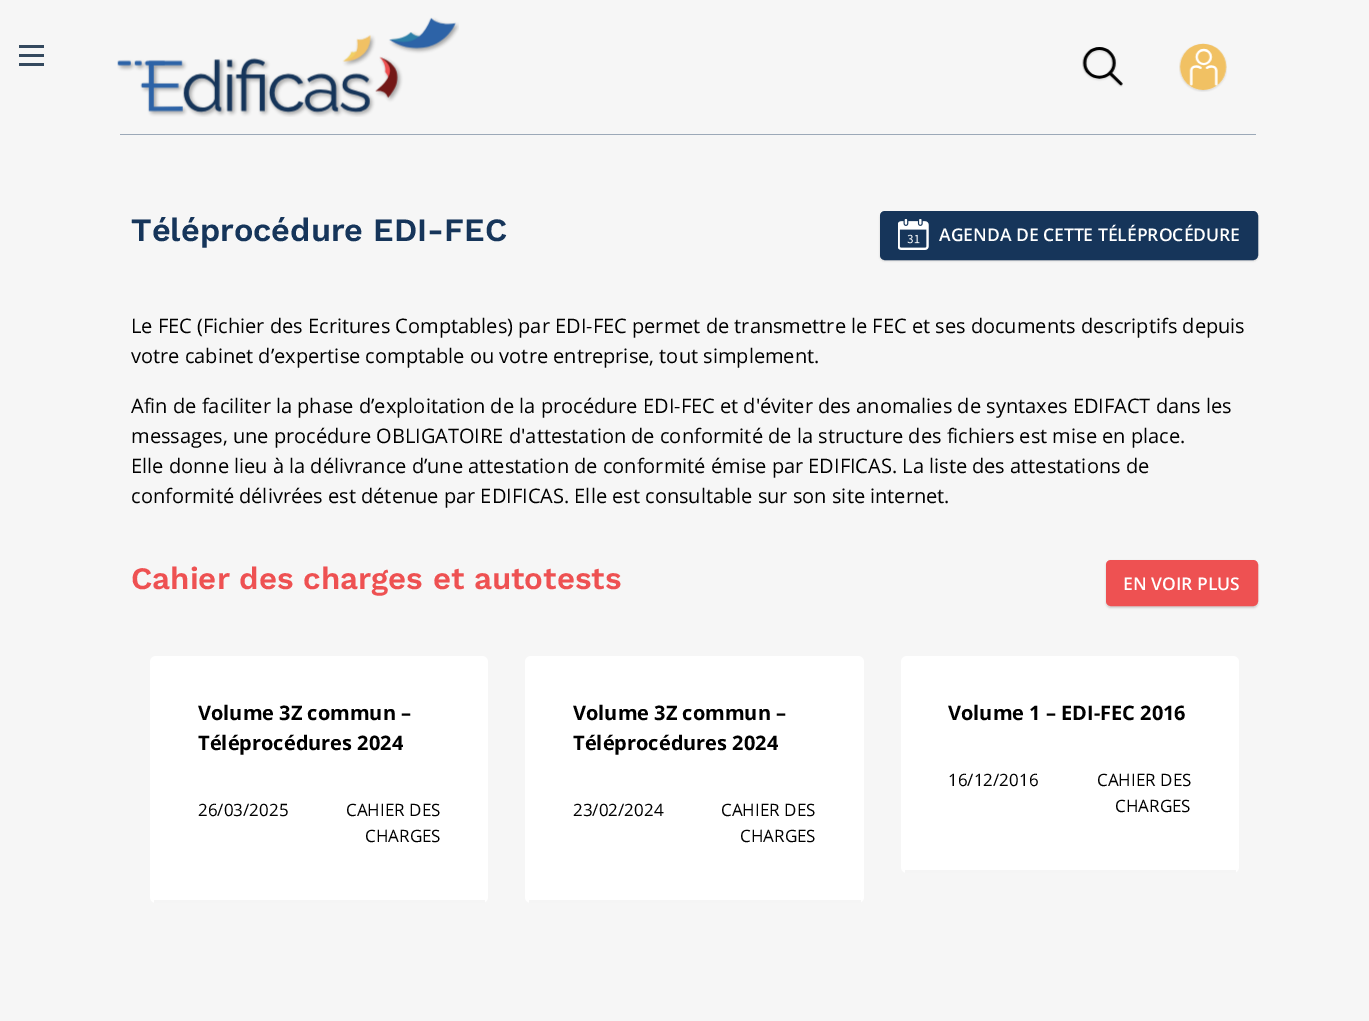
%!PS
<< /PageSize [1369 1021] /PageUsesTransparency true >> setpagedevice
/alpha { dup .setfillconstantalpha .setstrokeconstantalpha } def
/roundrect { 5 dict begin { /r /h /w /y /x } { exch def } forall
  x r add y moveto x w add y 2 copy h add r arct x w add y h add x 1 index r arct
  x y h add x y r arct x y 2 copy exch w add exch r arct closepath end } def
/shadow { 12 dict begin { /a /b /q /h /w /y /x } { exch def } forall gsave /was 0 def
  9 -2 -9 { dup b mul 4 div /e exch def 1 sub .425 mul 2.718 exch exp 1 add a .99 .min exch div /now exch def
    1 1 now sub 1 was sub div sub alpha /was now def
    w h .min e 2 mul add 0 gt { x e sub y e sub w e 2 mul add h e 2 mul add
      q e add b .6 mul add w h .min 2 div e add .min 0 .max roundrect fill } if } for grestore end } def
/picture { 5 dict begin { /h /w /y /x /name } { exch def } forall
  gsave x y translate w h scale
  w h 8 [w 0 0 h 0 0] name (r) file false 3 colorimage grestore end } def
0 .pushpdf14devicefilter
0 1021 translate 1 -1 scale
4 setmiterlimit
0.965 setgray
0 0 1369 1021 rectfill
0.204 0.286 0.369 setrgbcolor
19 54 25 3 rectfill
19 45 25 3 rectfill
19 63 25 3 rectfill
0.612 0.663 0.722 setrgbcolor
120 134 1136 1 rectfill
(img1.rgb) 117 17 342 100 picture
(img2.rgb) 1082 47 41 40 picture
(img3.rgb) 1179 43 48 49 picture
/WorkSans-SemiBold [32.5 0 0 -32.5 0 0] selectfont
0.086 0.208 0.353 setrgbcolor
131 241 moveto (Téléprocédure EDI-FEC) show
0 setgray
880 213 378 48 5 1 0.16 shadow
0.086 0.208 0.353 setrgbcolor
881.5 212.5 375 46 3.5 roundrect gsave fill grestore
3 setlinewidth
stroke
(img4.rgb) 898 219 31 31 picture
/OpenSans-SemiBold [17.5 0 0 -17.5 0 0] selectfont
1 setgray
939 241 moveto (AGENDA DE CETTE TÉLÉPROCÉDURE) show
/OpenSans-Regular [20 0 0 -20 0 0] selectfont
0 setgray
131 333 moveto (Le FEC \(Fichier des Ecritures Comptables\) par EDI-FEC permet de transmettre le FEC et ses documents descriptifs depuis) show
131 363 moveto (votre cabinet d’expertise comptable ou votre entreprise, tout simplement.) show
131 413 moveto (Afin de faciliter la phase d’exploitation de la procédure EDI-FEC et d'éviter des anomalies de syntaxes EDIFACT dans les) show
131 443 moveto (messages, une procédure OBLIGATOIRE d'attestation de conformité de la structure des fichiers est mise en place.) show
131 473 moveto (Elle donne lieu à la délivrance d’une attestation de conformité émise par EDIFICAS. La liste des attestations de) show
131 503 moveto (conformité délivrées est détenue par EDIFICAS. Elle est consultable sur son site internet.) show
/WorkSans-SemiBold [31.25 0 0 -31.25 0 0] selectfont
0.933 0.318 0.322 setrgbcolor
131 589 moveto (Cahier des charges et autotests) show
0 setgray
1106 561 152 47 5 1 0.16 shadow
0.933 0.318 0.322 setrgbcolor
1107.5 561.5 149 43 3.5 roundrect gsave fill grestore
stroke
/OpenSans-SemiBold [17.5 0 0 -17.5 0 0] selectfont
1 setgray
1123 590 moveto (EN VOIR PLUS) show
150 656 338 247 6 roundrect fill
0.961 setgray
154 900 331 3 rectfill
/OpenSans-Bold [20 0 0 -20 0 0] selectfont
0 setgray
198 720 moveto (Volume 3Z commun –) show
198 750 moveto (Téléprocédures 2024) show
/OpenSans-Regular [17 0 0 -17 0 0] selectfont
198 816 moveto (26/03/2025) show
346 816 moveto (CAHIER DES) show
365 842 moveto (CHARGES) show
1 setgray
525 656 339 247 6 roundrect fill
0.961 setgray
529 900 332 3 rectfill
/OpenSans-Bold [20 0 0 -20 0 0] selectfont
0 setgray
573 720 moveto (Volume 3Z commun –) show
573 750 moveto (Téléprocédures 2024) show
/OpenSans-Regular [17 0 0 -17 0 0] selectfont
573 816 moveto (23/02/2024) show
721 816 moveto (CAHIER DES) show
740 842 moveto (CHARGES) show
1 setgray
901 656 338 217 6 roundrect fill
0.961 setgray
905 870 331 3 rectfill
/OpenSans-Bold [20 0 0 -20 0 0] selectfont
0 setgray
948 720 moveto (Volume 1 – EDI-FEC 2016) show
/OpenSans-Regular [17 0 0 -17 0 0] selectfont
948 786 moveto (16/12/2016) show
1097 786 moveto (CAHIER DES) show
1115 812 moveto (CHARGES) show
.poppdf14devicefilter showpage
